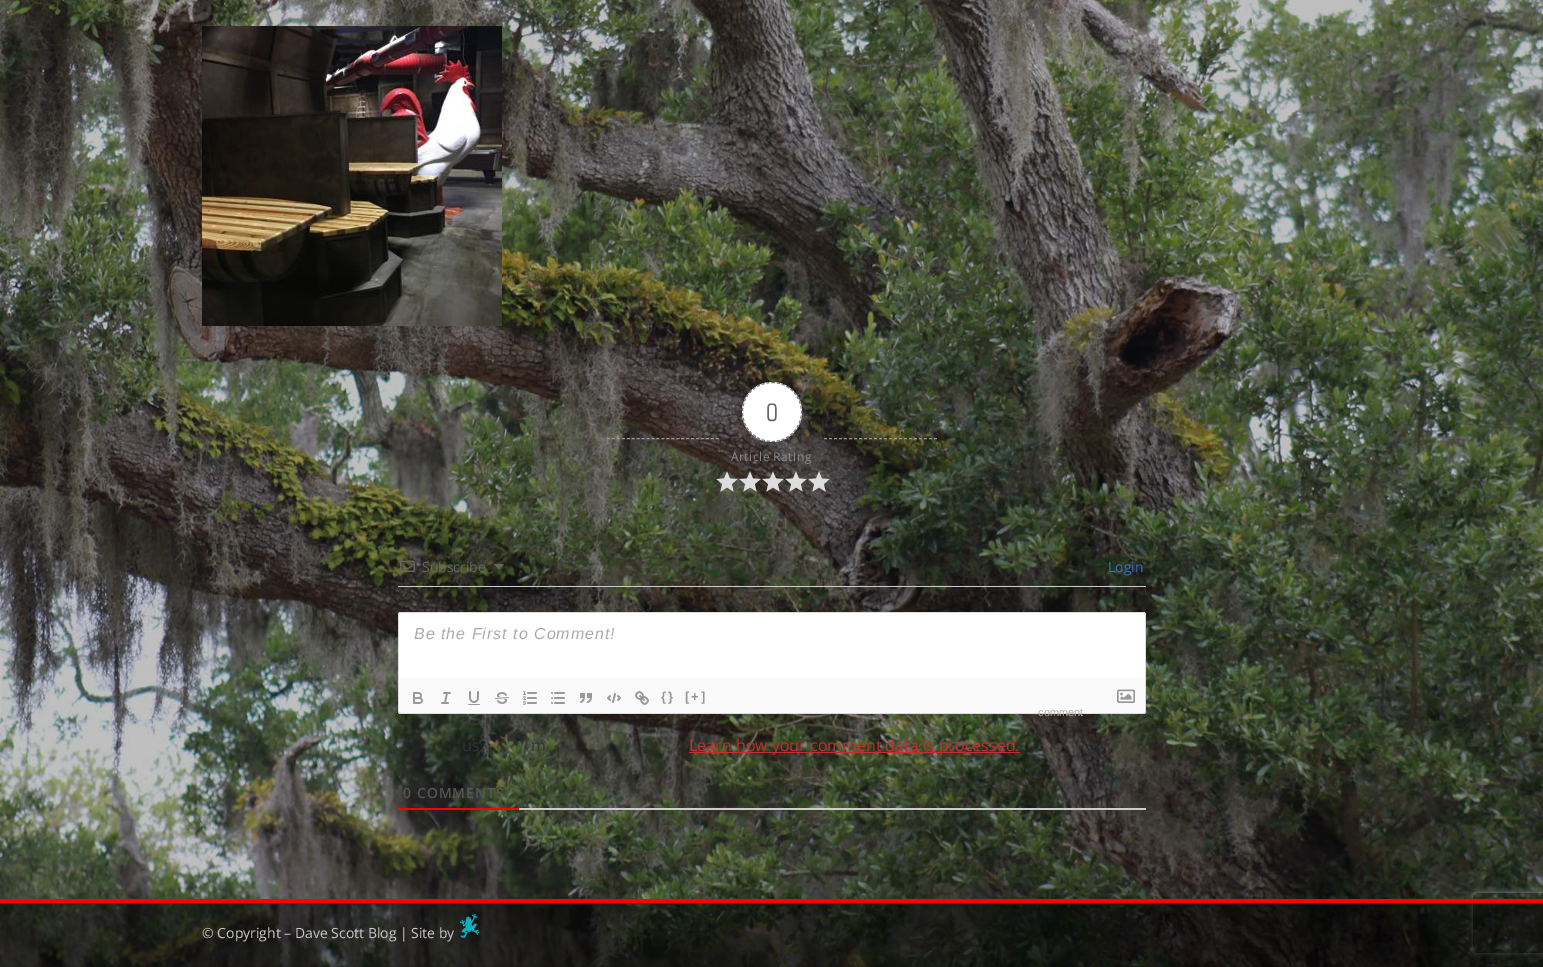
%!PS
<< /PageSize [1543 967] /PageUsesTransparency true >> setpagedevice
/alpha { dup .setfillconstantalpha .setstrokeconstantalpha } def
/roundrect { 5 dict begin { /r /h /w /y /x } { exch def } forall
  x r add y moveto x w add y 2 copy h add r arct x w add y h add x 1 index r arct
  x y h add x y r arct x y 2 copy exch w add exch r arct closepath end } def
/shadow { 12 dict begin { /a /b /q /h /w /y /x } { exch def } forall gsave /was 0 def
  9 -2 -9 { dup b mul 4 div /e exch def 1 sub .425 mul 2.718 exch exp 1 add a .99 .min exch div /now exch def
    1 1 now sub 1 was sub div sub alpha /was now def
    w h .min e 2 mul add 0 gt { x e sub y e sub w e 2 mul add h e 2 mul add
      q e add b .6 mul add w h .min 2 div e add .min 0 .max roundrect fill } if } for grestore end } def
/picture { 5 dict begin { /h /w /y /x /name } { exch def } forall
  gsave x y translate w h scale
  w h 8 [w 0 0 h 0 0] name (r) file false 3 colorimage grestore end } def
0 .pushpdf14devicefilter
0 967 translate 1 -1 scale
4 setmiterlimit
1 setgray
0 0 1543 967 rectfill
(img1.rgb) 0 0 1543 967 picture
(img2.rgb) 202 26 300 300 picture
0.6 setgray
[3 1.95] 0 setdash
newpath 607 438.5 moveto 719 438.5 lineto stroke
1 setgray
newpath 772 412 30 0 360 arc closepath fill
0.467 setgray
[3 2] 0 setdash
newpath 772 382.5 moveto 788.5 382.5 801.5 395.5 801.5 412 curveto 801.5 428.5 788.5 441.5 772 441.5 curveto 755.5 441.5 742.5 428.5 742.5 412 curveto 742.5 395.5 755.5 382.5 772 382.5 curveto closepath stroke
/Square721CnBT-Regular [24 0 0 -24 0 0] selectfont
0.4 setgray
766 421 moveto (0) show
/OpenSans-Regular [12 0 0 -12 0 0] selectfont
0.533 setgray
731 461 moveto 0.5 0 (Article Rating) ashow
(img3.rgb) 716 471 22 21 picture
(img4.rgb) 739 471 22 21 picture
(img5.rgb) 762 471 22 21 picture
(img6.rgb) 785 471 22 21 picture
(img7.rgb) 808 471 22 21 picture
0.6 setgray
newpath 824 438.5 moveto 937 438.5 lineto stroke
0.8 setgray
398 586 748 1 rectfill
(img8.rgb) 400 560 15 12 picture
/OpenSans-Regular [14 0 0 -14 0 0] selectfont
0.4 setgray
422 572 moveto (Subscribe) show
(img9.rgb) 494 564 10 6 picture
0.196 0.447 0.749 setrgbcolor
1108 572 moveto (Login) show
1 setgray
newpath 401 612 moveto 1143 612 lineto 1144.5 612 1146 613.5 1146 615 curveto 1146 678 lineto 398 678 lineto 398 615 lineto 398 613.5 399.5 612 401 612 curveto closepath fill
0.867 setgray
newpath 401 612 moveto 1143 612 lineto 1145 612 1146 613 1146 615 curveto 1146 678 lineto 398 678 lineto 398 615 lineto 398 613 399 612 401 612 curveto closepath 401 613 moveto 1143 613 lineto 1144 613 1145 614 1145 615 curveto 1145 678 lineto 399 678 lineto 399 615 lineto 399 614 400 613 401 613 curveto closepath eofill
/LiberationSans-Italic [16 0 0 -16 0 0] selectfont
0.667 setgray
414 639 moveto 1 0 (Be the First to Comment!) ashow
0.98 setgray
newpath 398 678 moveto 1146 678 lineto 1146 711 lineto 1146 712.5 1144.5 714 1143 714 curveto 401 714 lineto 399.5 714 398 712.5 398 711 curveto closepath fill
0.867 setgray
newpath 398 678 moveto 1146 678 lineto 1146 711 lineto 1146 713 1145 714 1143 714 curveto 401 714 lineto 399 714 398 713 398 711 curveto closepath 399 678 moveto 1145 678 lineto 1145 711 lineto 1145 712 1144 713 1143 713 curveto 401 713 lineto 400 713 399 712 399 711 curveto closepath eofill
(img10.rgb) 413 692 10 12 picture
(img11.rgb) 441 692 10 12 picture
(img12.rgb) 468 691 12 14 picture
(img13.rgb) 495 692 14 12 picture
(img14.rgb) 523 691 14 14 picture
(img15.rgb) 551 692 14 12 picture
(img16.rgb) 580 693 12 10 picture
(img17.rgb) 607 693 14 10 picture
(img18.rgb) 635 691 14 14 picture
/LiberationSans-Bold [13 0 0 -13 0 0] selectfont
0.6 setgray
661 701 moveto 2 0 ({}) ashow
685 701 moveto 2 0 ([+]) ashow
(img19.rgb) 1117 689 18 14 picture
/LiberationSans-Regular [11 0 0 -11 0 0] selectfont
0.694 0.686 0.682 setrgbcolor
1038 716 moveto (comment) show
/OpenSans-Regular [16 0 0 -16 0 0] selectfont
0.2 setgray
462 751 moveto (us) show
531 751 moveto (m) show
0.788 0.173 0.173 setrgbcolor
689 752 331 1 rectfill
689 751 moveto (Learn how your comment data is processed.) show
0.8 setgray
519 808 627 2 rectfill
1 0 0 setrgbcolor
398 808 121 2 rectfill
/OpenSans-SemiBold [14 0 0 -14 0 0] selectfont
0.333 setgray
403 798 moveto 1 0 (0 COMMENTS) ashow
gsave
newpath 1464 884 moveto 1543 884 lineto 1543 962 lineto 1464 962 lineto closepath 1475 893 moveto 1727 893 lineto 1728 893 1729 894 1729 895 curveto 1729 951 lineto 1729 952 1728 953 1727 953 curveto 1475 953 lineto 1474 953 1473 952 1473 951 curveto 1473 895 lineto 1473 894 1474 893 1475 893 curveto closepath eoclip newpath
0.502 setgray
1473 893 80 60 2 2.5 1 shadow
grestore
0.5 alpha
0 setgray
0 903 1543 64 rectfill
1 alpha
1 0 0 setrgbcolor
0 899 1543 4 rectfill
/OpenSans-Regular [14 0 0 -14 0 0] selectfont
0.8 0.784 0.784 setrgbcolor
202 938 moveto (© Copyright – Dave Scott Blog | Site by) show
(img20.rgb) 460 914 19 24 picture
.poppdf14devicefilter showpage
